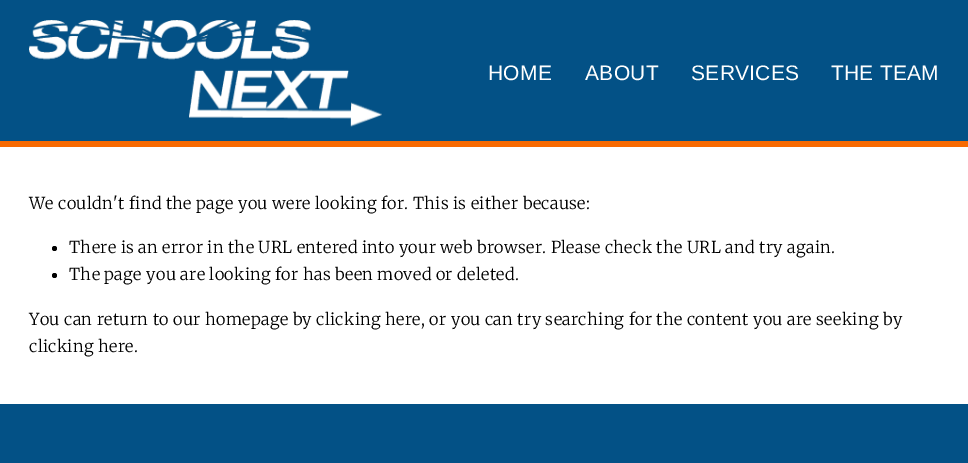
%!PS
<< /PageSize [968 463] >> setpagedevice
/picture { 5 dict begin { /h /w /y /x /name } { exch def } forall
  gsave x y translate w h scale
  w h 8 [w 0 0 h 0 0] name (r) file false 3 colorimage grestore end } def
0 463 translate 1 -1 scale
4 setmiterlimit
1 setgray
0 0 968 463 rectfill
0.012 0.318 0.525 setrgbcolor
0 0 968 141 rectfill
(img1.rgb) 29 20 353 107 picture
/LiberationSans-Regular [21 0 0 -21 0 0] selectfont
1 setgray
488 80 moveto 0.25 0 (HOME) ashow
585 80 moveto 0.25 0 (ABOUT) ashow
691 80 moveto 0.25 0 (SERVICES) ashow
831 80 moveto 0.25 0 (THE TEAM) ashow
0.969 0.416 0.008 setrgbcolor
0 141 968 6 rectfill
/Merriweather-Light [16.32 0 0 -16.32 0 0] selectfont
0 setgray
29 209 moveto 0.33 0 (We couldn't find the page you were looking for. This is either because:) ashow
newpath 54.5 248.5 2.5 0 360 arc closepath fill
69 253 moveto 0.33 0 (There is an error in the URL entered into your web browser. Please check the URL and try again.) ashow
newpath 54.5 275.5 2.5 0 360 arc closepath fill
69 280 moveto 0.33 0 (The page you are looking for has been moved or deleted.) ashow
29 325 moveto 0.33 0 (You can return to our homepage by clicking here, or you can try searching for the content you are seeking by) ashow
29 352 moveto 0.33 0 (clicking here.) ashow
0.012 0.318 0.525 setrgbcolor
0 404 968 59 rectfill
showpage
